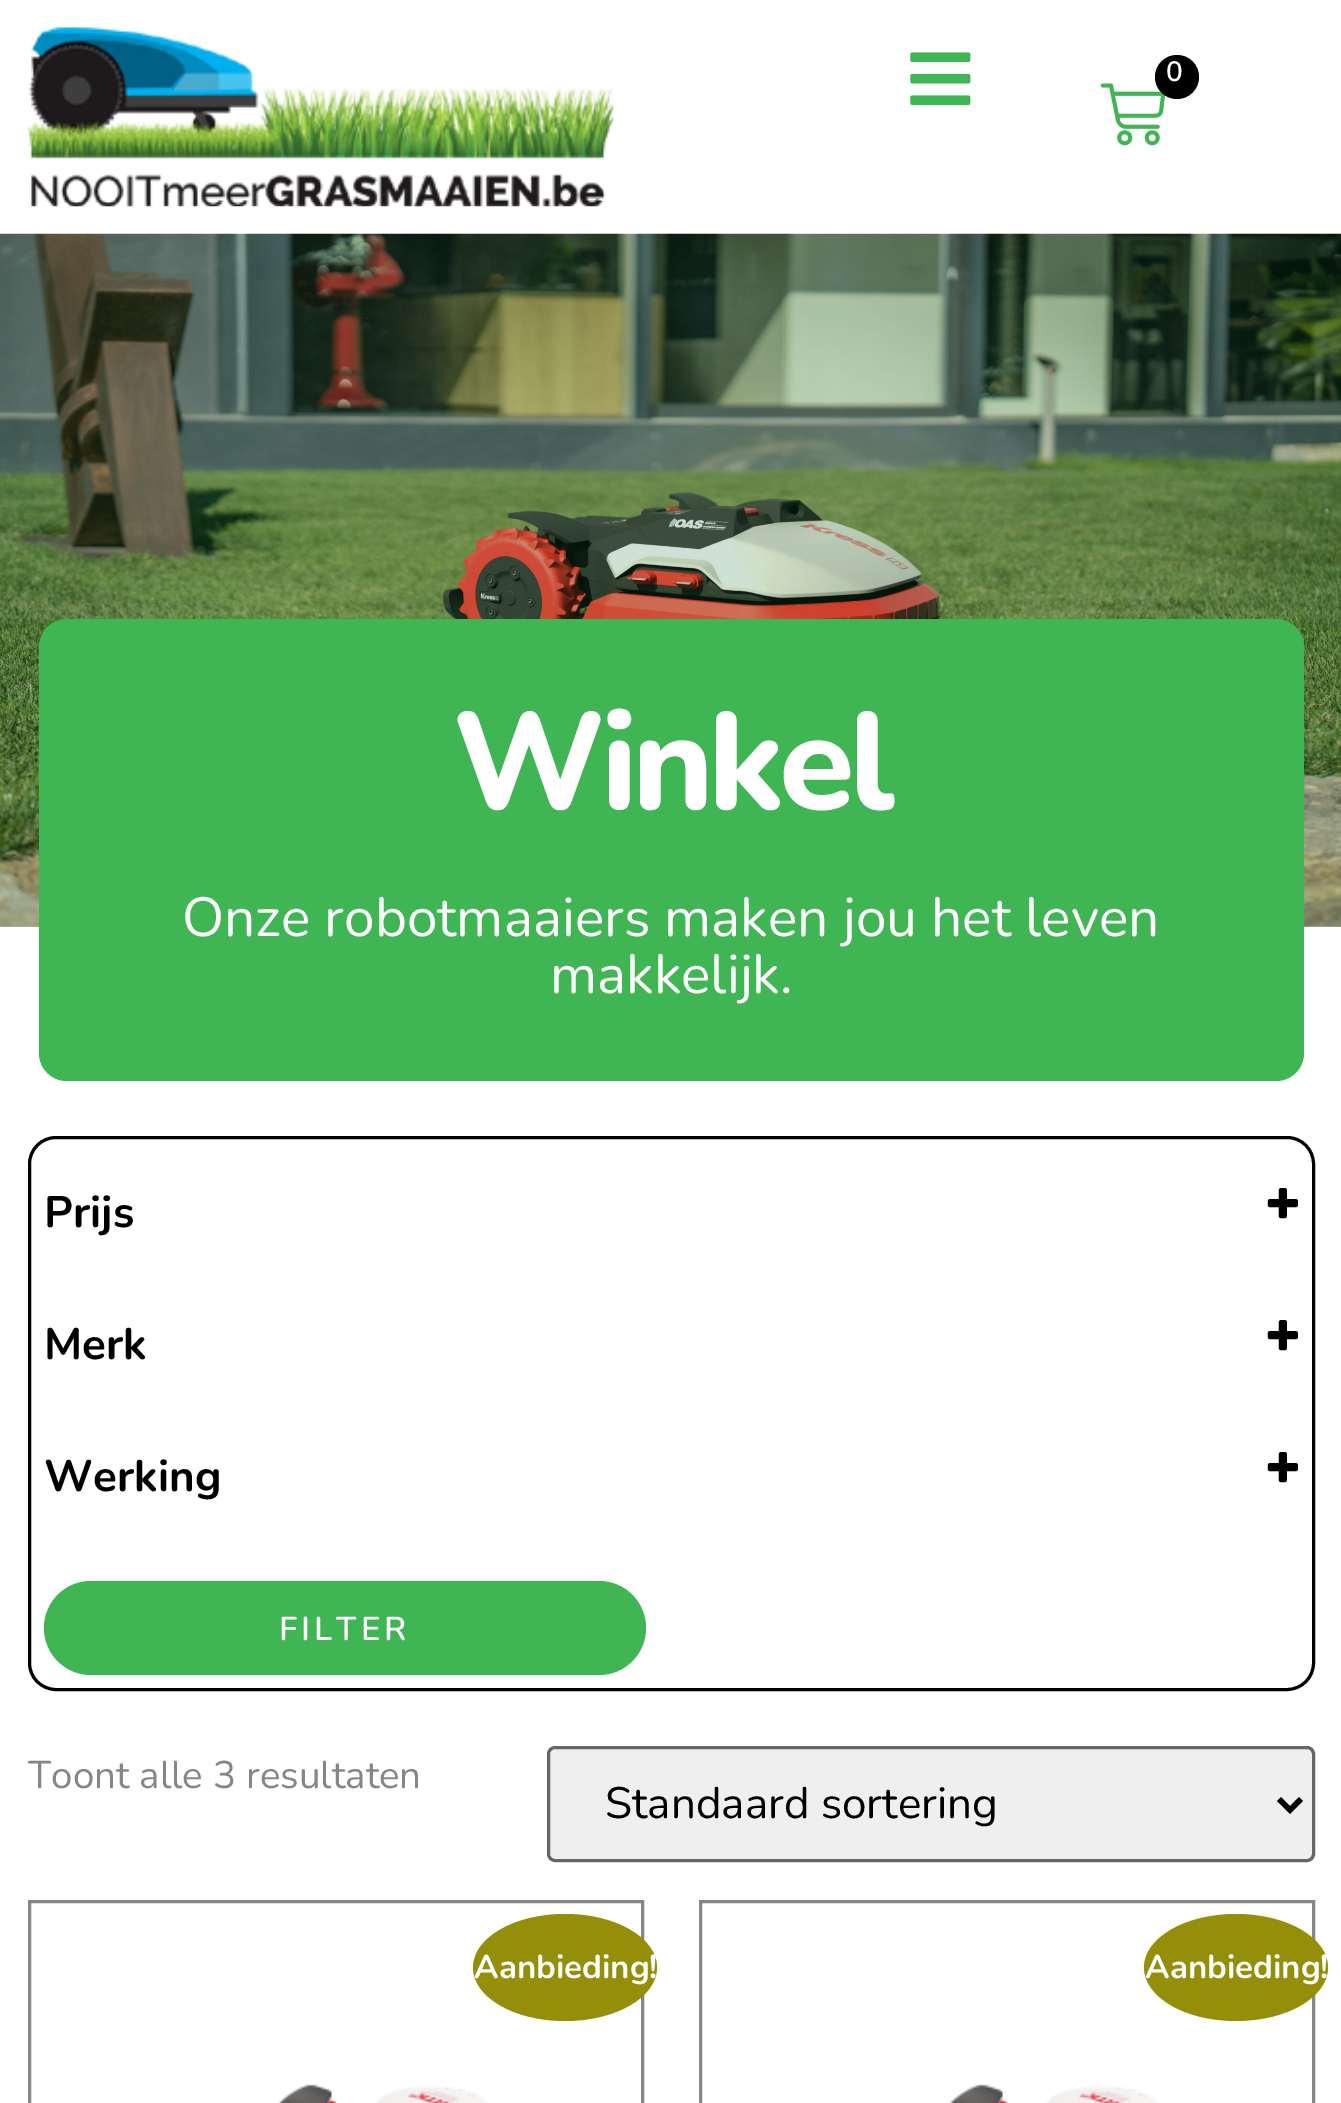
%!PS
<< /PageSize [1341 2103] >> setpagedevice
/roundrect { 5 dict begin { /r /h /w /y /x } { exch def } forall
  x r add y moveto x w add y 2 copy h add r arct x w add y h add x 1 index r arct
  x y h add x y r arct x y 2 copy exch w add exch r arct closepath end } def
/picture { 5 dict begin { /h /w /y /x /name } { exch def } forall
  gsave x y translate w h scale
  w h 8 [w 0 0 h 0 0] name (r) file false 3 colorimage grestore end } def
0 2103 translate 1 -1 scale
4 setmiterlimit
1 setgray
0 0 1341 2103 rectfill
(img1.rgb) 27 27 587 180 picture
(img2.rgb) 910 52 61 54 picture
(img3.rgb) 1100 83 66 63 picture
0 setgray
newpath 1177 77 22 0 360 arc closepath fill
/Nunito-SemiBold [28 0 0 -28 0 0] selectfont
1 setgray
1166 81 moveto 4 0 (0) ashow
(img4.rgb) 0 233 1341 694 picture
0.251 0.71 0.329 setrgbcolor
39 619 1265 462 28 roundrect fill
/Nunito-ExtraBold [137.5 0 0 -137.5 0 0] selectfont
1 setgray
452 809 moveto -5.5 0 (Winkel) ashow
/Nunito-Regular [55 0 0 -55 0 0] selectfont
182 936 moveto (Onze robotmaaiers maken jou het leven) show
550 993 moveto (makkelijk.) show
0 setgray
3 setlinewidth
29.5 1137.5 1284 552 26.5 roundrect stroke
/Nunito-Bold [44 0 0 -44 0 0] selectfont
44 1227 moveto (Prijs) show
(img5.rgb) 1267 1188 31 31 picture
44 1359 moveto (Merk) show
(img5.rgb) 1267 1320 31 31 picture
44 1491 moveto (Werking) show
(img5.rgb) 1267 1452 31 31 picture
0.251 0.71 0.329 setrgbcolor
44 1581 602 94 47 roundrect fill
/Nunito-SemiBold [33 0 0 -33 0 0] selectfont
1 setgray
279 1640 moveto 4 0 (FILTER) ashow
/Nunito-Regular [38.5 0 0 -38.5 0 0] selectfont
0.525 setgray
28 1788 moveto (Toont alle 3 resultaten) show
0.937 setgray
548.5 1747.5 765 113 6.5 roundrect gsave fill grestore
0.4 setgray
stroke
0 setgray
5.5 setlinewidth
newpath 1279 1799 moveto 1290 1810 lineto 1301 1799 lineto stroke
/Nunito-Regular [44 0 0 -44 0 0] selectfont
605 1818 moveto (Standaard sortering) show
0.525 setgray
3 setlinewidth
29.5 1901.5 613 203 rectstroke
0.584 0.557 0.035 setrgbcolor
newpath 565 1914 moveto 616 1914 657 1938 657 1967.5 curveto 657 1997 616 2021 565 2021 curveto 514 2021 473 1997 473 1967.5 curveto 473 1938 514 1914 565 1914 curveto closepath fill
/Nunito-Bold [33 0 0 -33 0 0] selectfont
1 setgray
474 1978 moveto (Aanbieding!) show
(img6.rgb) 278 2084 210 19 picture
0.525 setgray
700.5 1901.5 613 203 rectstroke
0.584 0.557 0.035 setrgbcolor
newpath 1236 1914 moveto 1287 1914 1328 1938 1328 1967.5 curveto 1328 1997 1287 2021 1236 2021 curveto 1185 2021 1144 1997 1144 1967.5 curveto 1144 1938 1185 1914 1236 1914 curveto closepath fill
1 setgray
1145 1978 moveto (Aanbieding!) show
(img6.rgb) 949 2084 210 19 picture
showpage
